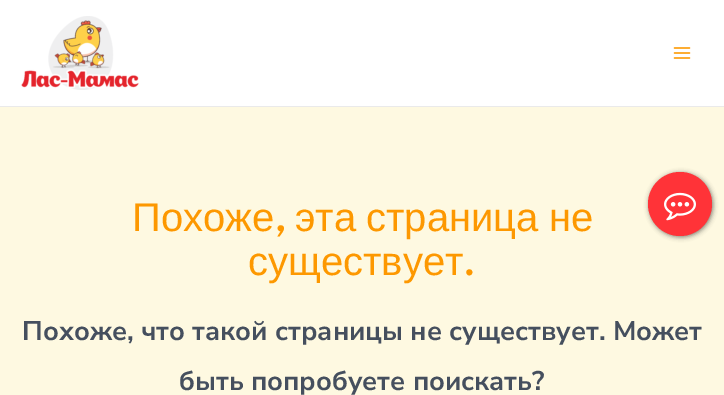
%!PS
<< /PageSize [724 395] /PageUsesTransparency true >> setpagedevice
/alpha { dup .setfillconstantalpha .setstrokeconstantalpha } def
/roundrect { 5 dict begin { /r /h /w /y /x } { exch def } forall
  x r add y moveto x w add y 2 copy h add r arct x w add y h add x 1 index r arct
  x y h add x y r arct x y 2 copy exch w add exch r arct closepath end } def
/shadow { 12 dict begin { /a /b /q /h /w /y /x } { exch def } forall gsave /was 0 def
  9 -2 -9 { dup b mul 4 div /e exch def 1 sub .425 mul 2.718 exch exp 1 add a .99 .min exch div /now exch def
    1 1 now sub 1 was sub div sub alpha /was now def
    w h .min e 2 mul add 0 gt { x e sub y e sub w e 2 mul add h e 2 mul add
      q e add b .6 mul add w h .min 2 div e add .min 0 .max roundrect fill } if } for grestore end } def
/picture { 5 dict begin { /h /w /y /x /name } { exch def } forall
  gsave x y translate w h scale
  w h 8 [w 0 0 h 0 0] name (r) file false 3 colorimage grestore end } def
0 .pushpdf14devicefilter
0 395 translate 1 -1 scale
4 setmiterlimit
0.996 0.976 0.882 setrgbcolor
0 0 724 395 rectfill
0 setgray
649 173 64 64 32 2.5 0.5 shadow
1 0.2 0.22 setrgbcolor
newpath 680 204 32 0 360 arc closepath fill
(img1.rgb) 664 192 32 29 picture
1 setgray
0 0 724 106 rectfill
0.918 setgray
0 106 724 1 rectfill
(img2.rgb) 21 16 118 74 picture
(img3.rgb) 673 47 18 12 picture
/LiberationSans-Regular [40 0 0 -40 0 0] selectfont
0.992 0.596 0 setrgbcolor
132 231 moveto (Похоже) show
/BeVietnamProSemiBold-SemiBold [40 0 0 -40 0 0] selectfont
274 231 moveto (,) show
/LiberationSans-Regular [40 0 0 -40 0 0] selectfont
295 231 moveto -1 0 32 (эта страница не) widthshow
248 275 moveto (существует) show
/BeVietnamProSemiBold-SemiBold [40 0 0 -40 0 0] selectfont
463 275 moveto (.) show
/NunitoSans-Bold [27 0 0 -27 0 0] selectfont
0.271 0.31 0.369 setrgbcolor
22 340 moveto (Похоже, что такой страницы не существует. Может) show
179 390 moveto (быть попробуете поискать?) show
.poppdf14devicefilter showpage
